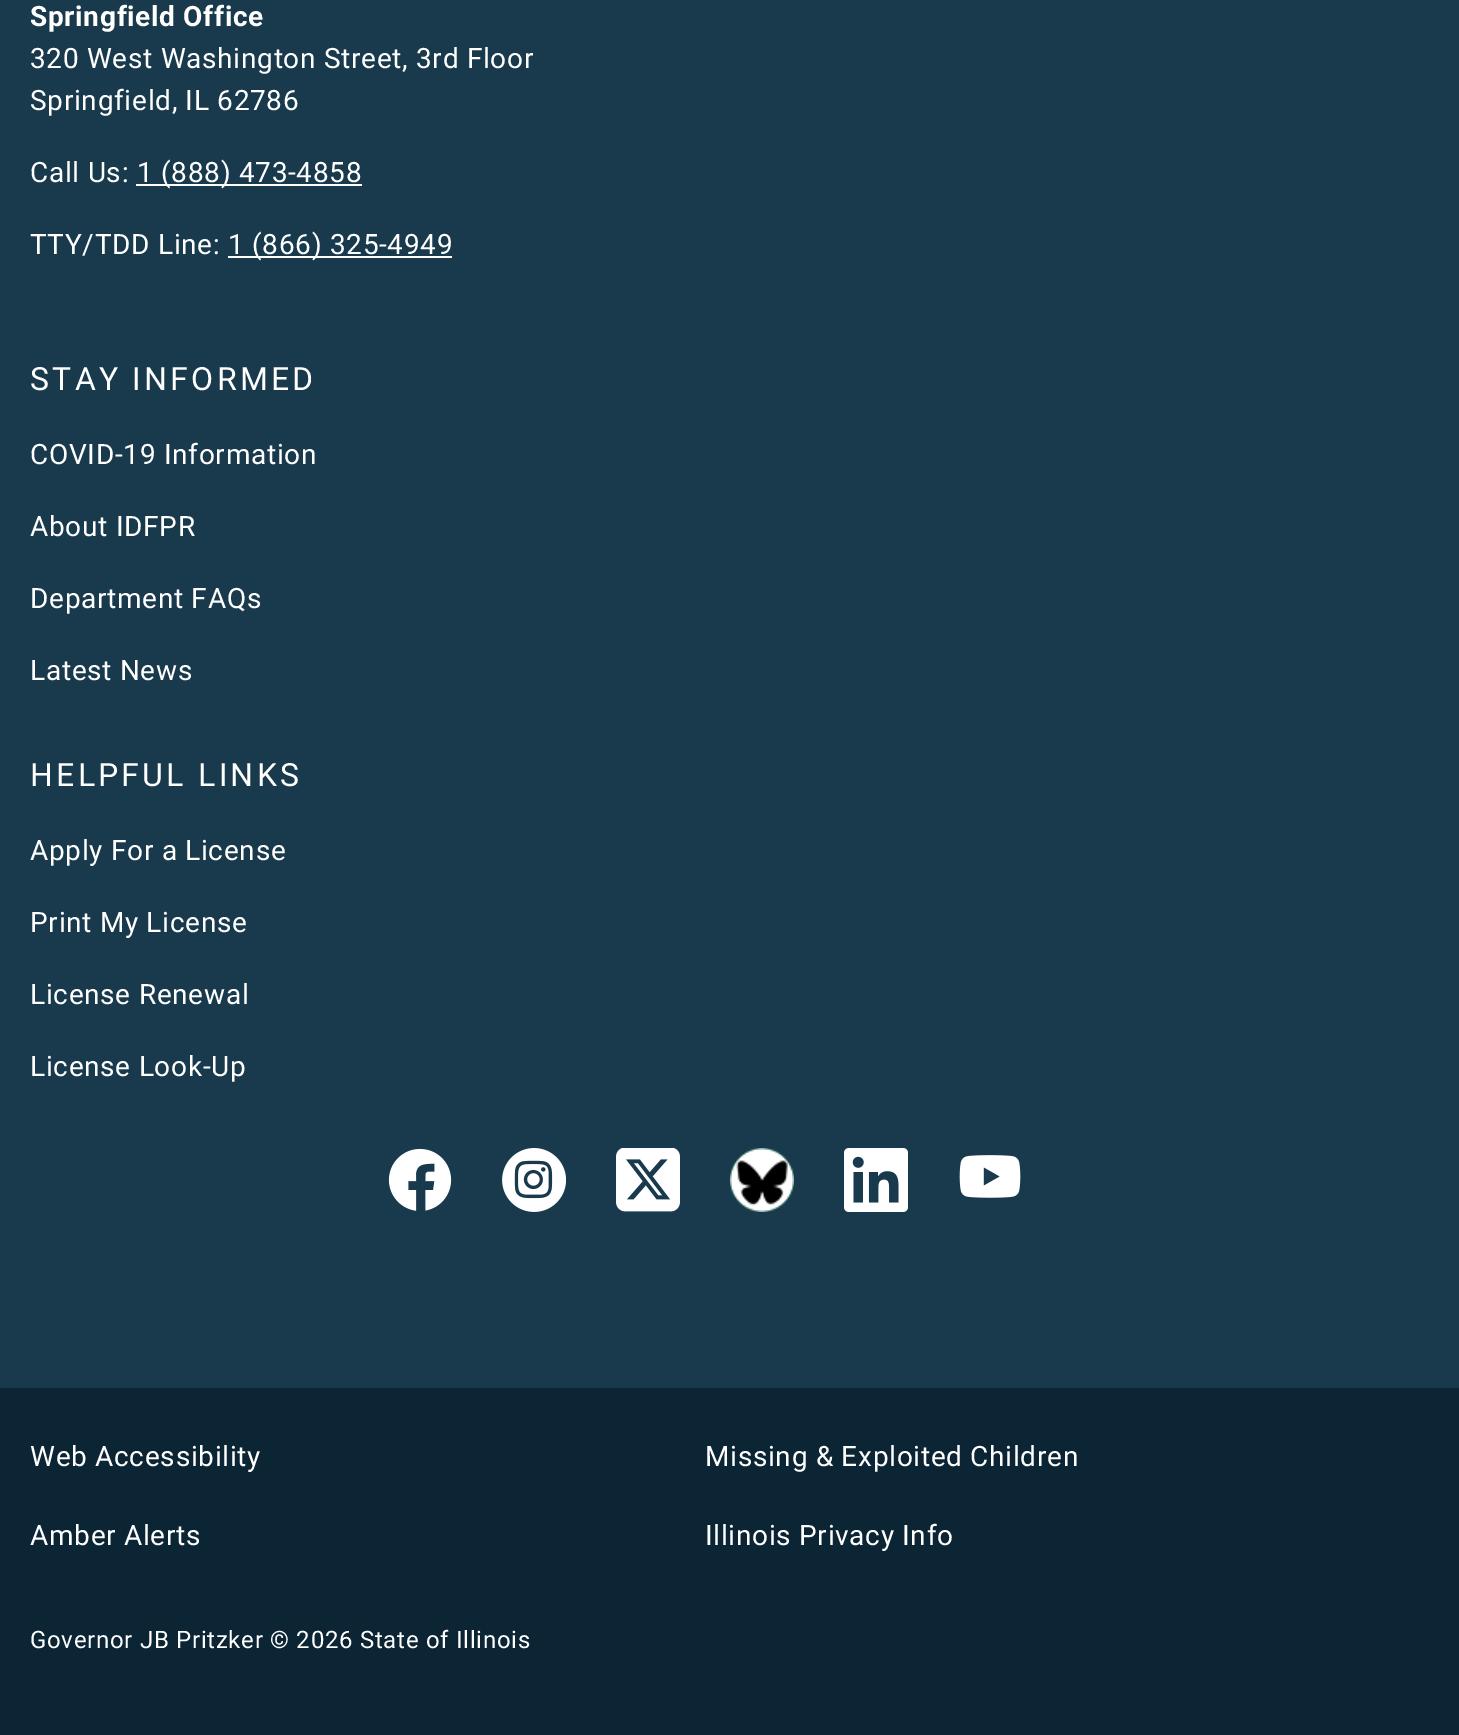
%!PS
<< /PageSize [1459 1735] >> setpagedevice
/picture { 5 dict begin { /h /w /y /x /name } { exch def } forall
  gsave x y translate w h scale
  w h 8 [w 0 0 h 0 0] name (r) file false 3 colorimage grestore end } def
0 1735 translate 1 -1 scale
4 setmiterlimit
0.098 0.227 0.302 setrgbcolor
0 0 1459 1735 rectfill
/Roboto-Bold [28 0 0 -28 0 0] selectfont
1 setgray
30 26 moveto 0.7 0 (Springfield Office) ashow
/Roboto-Regular [28 0 0 -28 0 0] selectfont
30 68 moveto 0.7 0 (320 West Washington Street, 3rd Floor) ashow
30 110 moveto 0.7 0 (Springfield, IL 62786) ashow
30 182 moveto 0.7 0 (Call Us:) ashow
136 184 226 2 rectfill
137 182 moveto 0.7 0 (1 \(888\) 473-4858) ashow
30 254 moveto 0.7 0 (TTY/TDD Line:) ashow
228 256 224 2 rectfill
228 254 moveto 0.7 0 (1 \(866\) 325-4949) ashow
/Roboto-Regular [32 0 0 -32 0 0] selectfont
30 390 moveto 3.25 0 (STAY INFORMED) ashow
/Roboto-Regular [28 0 0 -28 0 0] selectfont
30 464 moveto 0.7 0 (COVID-19 Information) ashow
30 536 moveto 0.7 0 (About IDFPR) ashow
30 608 moveto 0.7 0 (Department FAQs) ashow
30 680 moveto 0.7 0 (Latest News) ashow
/Roboto-Regular [32 0 0 -32 0 0] selectfont
30 786 moveto 3.25 0 (HELPFUL LINKS) ashow
/Roboto-Regular [28 0 0 -28 0 0] selectfont
30 860 moveto 0.7 0 (Apply For a License) ashow
30 932 moveto 0.7 0 (Print My License) ashow
30 1004 moveto 0.7 0 (License Renewal) ashow
30 1076 moveto 0.7 0 (License Look-Up) ashow
(img1.rgb) 388 1148 64 63 picture
(img2.rgb) 502 1148 64 64 picture
(img3.rgb) 616 1148 64 64 picture
(img4.rgb) 730 1148 64 64 picture
(img5.rgb) 844 1148 64 64 picture
(img6.rgb) 959 1155 62 43 picture
0.047 0.145 0.204 setrgbcolor
0 1388 1459 347 rectfill
1 setgray
30 1466 moveto 0.7 0 (Web Accessibility) ashow
705 1466 moveto 0.7 0 (Missing & Exploited Children) ashow
30 1545 moveto 0.7 0 (Amber Alerts) ashow
705 1545 moveto 0.7 0 (Illinois Privacy Info) ashow
/Roboto-Regular [24 0 0 -24 0 0] selectfont
30 1648 moveto 0.7 0 (Governor JB Pritzker © 2026 State of Illinois) ashow
showpage
